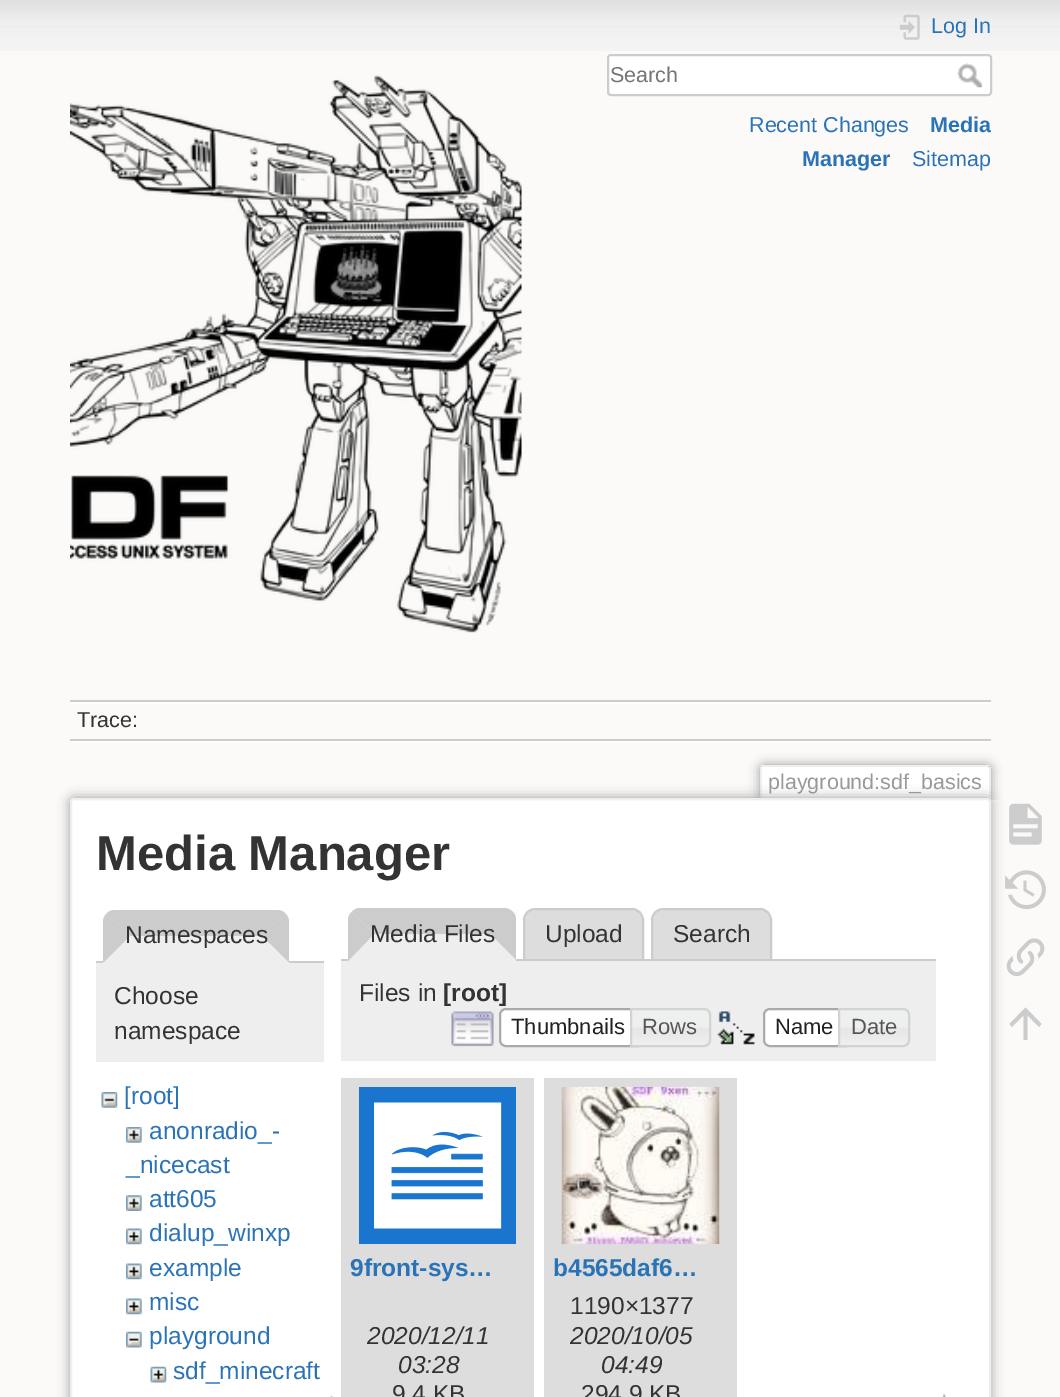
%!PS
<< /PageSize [1060 1397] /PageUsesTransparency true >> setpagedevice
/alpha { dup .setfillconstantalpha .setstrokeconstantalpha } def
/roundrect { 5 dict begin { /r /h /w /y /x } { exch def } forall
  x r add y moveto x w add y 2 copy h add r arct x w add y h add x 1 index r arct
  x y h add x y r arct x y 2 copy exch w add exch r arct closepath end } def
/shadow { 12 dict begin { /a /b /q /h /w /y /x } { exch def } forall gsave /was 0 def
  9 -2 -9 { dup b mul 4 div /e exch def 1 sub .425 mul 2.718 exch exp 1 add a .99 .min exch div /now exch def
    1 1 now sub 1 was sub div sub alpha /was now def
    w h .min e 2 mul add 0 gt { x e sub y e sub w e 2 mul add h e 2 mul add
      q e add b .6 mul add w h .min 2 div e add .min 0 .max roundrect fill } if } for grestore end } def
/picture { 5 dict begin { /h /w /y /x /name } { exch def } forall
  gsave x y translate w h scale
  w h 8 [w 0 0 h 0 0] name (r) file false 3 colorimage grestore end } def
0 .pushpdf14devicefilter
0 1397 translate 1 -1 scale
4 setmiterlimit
0.984 0.98 0.976 setrgbcolor
0 0 1060 1397 rectfill
(img1.rgb) 0 0 1060 51 picture
(img2.rgb) 70 75 452 558 picture
(img3.rgb) 899 14 21 26 picture
/LiberationSans-Regular [21.5 0 0 -21.5 0 0] selectfont
0.169 0.451 0.718 setrgbcolor
931 33 moveto (Log In) show
1 setgray
608 55 383 40 3 roundrect gsave fill grestore
0.8 setgray
2 setlinewidth
stroke
0.459 setgray
610 82 moveto (Search) show
(img4.rgb) 957 63 25 25 picture
0.169 0.451 0.718 setrgbcolor
749 132 moveto (Recent Changes) show
/LiberationSans-Bold [21.5 0 0 -21.5 0 0] selectfont
930 132 moveto (Media) show
802 166 moveto (Manager) show
/LiberationSans-Regular [21.5 0 0 -21.5 0 0] selectfont
912 166 moveto (Sitemap) show
0.8 setgray
70 700 921 2 rectfill
1 setgray
70 741 921 1 rectfill
70 702 921 2 rectfill
0.8 setgray
70 739 921 2 rectfill
0.2 setgray
77 727 moveto (Trace:) show
gsave
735 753 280 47 rectclip
0.6 setgray
760 765 231 35 4 5.5 1 shadow
grestore
1 setgray
newpath 763 767 moveto 987 767 lineto 988 767 989 768 989 769 curveto 989 800 lineto 761 800 lineto 761 769 lineto 761 768 762 767 763 767 curveto closepath fill
0.933 setgray
761 765 228 2 rectfill
989 767 2 33 rectfill
760 767 2 33 rectfill
0.6 setgray
768 789 moveto (playground:sdf_basics) show
70 798 921 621 4 6 1 shadow
1 setgray
71 799 919 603 3 roundrect gsave fill grestore
0.933 setgray
stroke
/LiberationSans-Bold [49 0 0 -49 0 0] selectfont
0.2 setgray
96 870 moveto (Media Manager) show
0.8 setgray
96 961 228 2 rectfill
0.933 setgray
newpath 115 910 moveto 277 910 lineto 283.5 910 289 915.5 289 922 curveto 289 963 lineto 103 963 lineto 103 922 lineto 103 915.5 108.5 910 115 910 curveto closepath fill
0.8 setgray
newpath 116 910 moveto 276 910 lineto 280 910 283 911 285 913 curveto 262 936 lineto 130 936 lineto 107 913 lineto 109 911 112 910 116 910 curveto closepath fill
newpath 285 913 moveto 262 936 lineto 288 962 lineto 289 962 lineto 289 920 lineto 288 917 287 915 285 913 curveto closepath fill
0.933 setgray
newpath 288 962 moveto 262 936 lineto 130 936 lineto 104 962 lineto closepath fill
0.8 setgray
newpath 104 962 moveto 130 936 lineto 107 913 lineto 105 915 104 917 103 920 curveto 103 962 lineto closepath fill
/LiberationSans-Regular [24.5 0 0 -24.5 0 0] selectfont
0.2 setgray
125 943 moveto (Namespaces) show
0.933 setgray
96 963 228 99 rectfill
0.2 setgray
114 1004 moveto (Choose) show
114 1039 moveto (namespace) show
(img5.rgb) 101 1092 17 16 picture
0.169 0.451 0.718 setrgbcolor
124 1104 moveto ([root]) show
(img6.rgb) 126 1127 16 16 picture
149 1139 moveto (anonradio_-) show
126 1173 moveto (_nicecast) show
(img7.rgb) 126 1195 16 16 picture
149 1207 moveto (att605) show
(img8.rgb) 126 1228 16 17 picture
149 1241 moveto (dialup_winxp) show
(img8.rgb) 126 1263 16 17 picture
149 1276 moveto (example) show
(img8.rgb) 126 1298 16 17 picture
149 1310 moveto (misc) show
(img9.rgb) 126 1331 16 17 picture
149 1344 moveto (playground) show
(img10.rgb) 150 1366 17 17 picture
173 1379 moveto (sdf_minecraft) show
(img11.rgb) 330 1395 3 2 picture
0.867 setgray
newpath 535 909 moveto 632 909 lineto 638 909 643 914 643 920 curveto 643 960 lineto 524 960 lineto 524 920 lineto 524 914 529 909 535 909 curveto closepath gsave fill grestore
0.8 setgray
stroke
0.867 setgray
newpath 663 909 moveto 760 909 lineto 766 909 771 914 771 920 curveto 771 960 lineto 652 960 lineto 652 920 lineto 652 914 657 909 663 909 curveto closepath gsave fill grestore
0.8 setgray
stroke
341 959 595 2 rectfill
0.933 setgray
newpath 360 908 moveto 504 908 lineto 510.5 908 516 913.5 516 920 curveto 516 961 lineto 348 961 lineto 348 920 lineto 348 913.5 353.5 908 360 908 curveto closepath fill
0.8 setgray
newpath 506 908 moveto 358 908 lineto 356 909 353 910 352 912 curveto 374 934 lineto 490 934 lineto 513 912 lineto 511 910 509 909 506 908 curveto closepath fill
newpath 513 912 moveto 490 934 lineto 516 960 lineto 516 920 lineto 516 917 515 914 513 912 curveto closepath fill
0.933 setgray
newpath 516 960 moveto 490 934 lineto 374 934 lineto 348 961 lineto closepath fill
0.8 setgray
newpath 348 961 moveto 374 934 lineto 352 912 lineto 350 913 349 916 348 918 curveto closepath fill
0.2 setgray
370 942 moveto (Media Files) show
545 942 moveto (Upload) show
673 942 moveto (Search) show
0.933 setgray
341 961 595 100 rectfill
0.2 setgray
359 1001 moveto (Files in) show
/LiberationSans-Bold [24.5 0 0 -24.5 0 0] selectfont
443 1001 moveto ([root]) show
(img12.rgb) 451 1011 43 36 picture
1 setgray
newpath 506 1008 moveto 639 1008 lineto 639 1047 lineto 506 1047 lineto 502 1047 499 1044 499 1040 curveto 499 1015 lineto 499 1011 502 1008 506 1008 curveto closepath fill
(img13.rgb) 499 1008 5 5 picture
0.667 setgray
newpath 506 1009 moveto 638 1009 lineto 638 1046 lineto 506 1046 lineto 502.5 1046 500 1043.5 500 1040 curveto 500 1015 lineto 500 1011.5 502.5 1009 506 1009 curveto closepath stroke
/LiberationSans-Regular [22 0 0 -22 0 0] selectfont
0.129 setgray
511 1034 moveto (Thumbnails) show
(img14.rgb) 632 1008 78 38 picture
0.827 setgray
newpath 631 1009 moveto 704 1009 lineto 707.5 1009 710 1011.5 710 1015 curveto 710 1040 lineto 710 1043.5 707.5 1046 704 1046 curveto 631 1046 lineto closepath stroke
0.333 setgray
642 1034 moveto (Rows) show
(img15.rgb) 717 1011 38 34 picture
1 setgray
newpath 770 1008 moveto 847 1008 lineto 847 1047 lineto 770 1047 lineto 766 1047 763 1044 763 1040 curveto 763 1015 lineto 763 1011 766 1008 770 1008 curveto closepath fill
0.984 setgray
767 1008 1 1 rectfill
0.667 setgray
newpath 770 1009 moveto 846 1009 lineto 846 1046 lineto 770 1046 lineto 766.5 1046 764 1043.5 764 1040 curveto 764 1015 lineto 764 1011.5 766.5 1009 770 1009 curveto closepath stroke
0.129 setgray
775 1034 moveto (Name) show
(img16.rgb) 840 1008 70 38 picture
0.827 setgray
newpath 839 1009 moveto 903 1009 lineto 906.5 1009 909 1011.5 909 1015 curveto 909 1040 lineto 909 1043.5 906.5 1046 903 1046 curveto 839 1046 lineto closepath stroke
0.333 setgray
851 1034 moveto (Date) show
0.867 setgray
341 1078 193 319 rectfill
(img17.rgb) 359 1087 157 157 picture
/LiberationSans-Bold [24.5 0 0 -24.5 0 0] selectfont
0.169 0.451 0.718 setrgbcolor
350 1276 moveto (9front-sys…) show
/LiberationSans-Italic [24.5 0 0 -24.5 0 0] selectfont
0.2 setgray
367 1344 moveto (2020/12/11) show
398 1373 moveto (03:28) show
/LiberationSans-Regular [24.5 0 0 -24.5 0 0] selectfont
392 1402 moveto (9.4 KB) show
0.867 setgray
544 1078 193 319 rectfill
(img18.rgb) 561 1086 159 159 picture
/LiberationSans-Bold [24.5 0 0 -24.5 0 0] selectfont
0.169 0.451 0.718 setrgbcolor
553 1276 moveto (b4565daf6…) show
/LiberationSans-Regular [24.5 0 0 -24.5 0 0] selectfont
0.2 setgray
570 1314 moveto (1190×1377) show
/LiberationSans-Italic [24.5 0 0 -24.5 0 0] selectfont
570 1344 moveto (2020/10/05) show
601 1373 moveto (04:49) show
/LiberationSans-Regular [24.5 0 0 -24.5 0 0] selectfont
581 1402 moveto (294.9 KB) show
(img19.rgb) 942 1393 4 4 picture
(img20.rgb) 1009 803 33 42 picture
(img21.rgb) 1005 870 41 40 picture
(img22.rgb) 1006 938 39 39 picture
0.8 setgray
newpath 1027.5 1040 moveto 1023.5 1040 lineto 1023.5 1015.5 lineto 1012 1027 lineto 1009.5 1024 lineto 1025.5 1007.5 lineto 1041.5 1024 lineto 1039 1027 lineto 1027.5 1015.5 lineto closepath fill
.poppdf14devicefilter showpage
